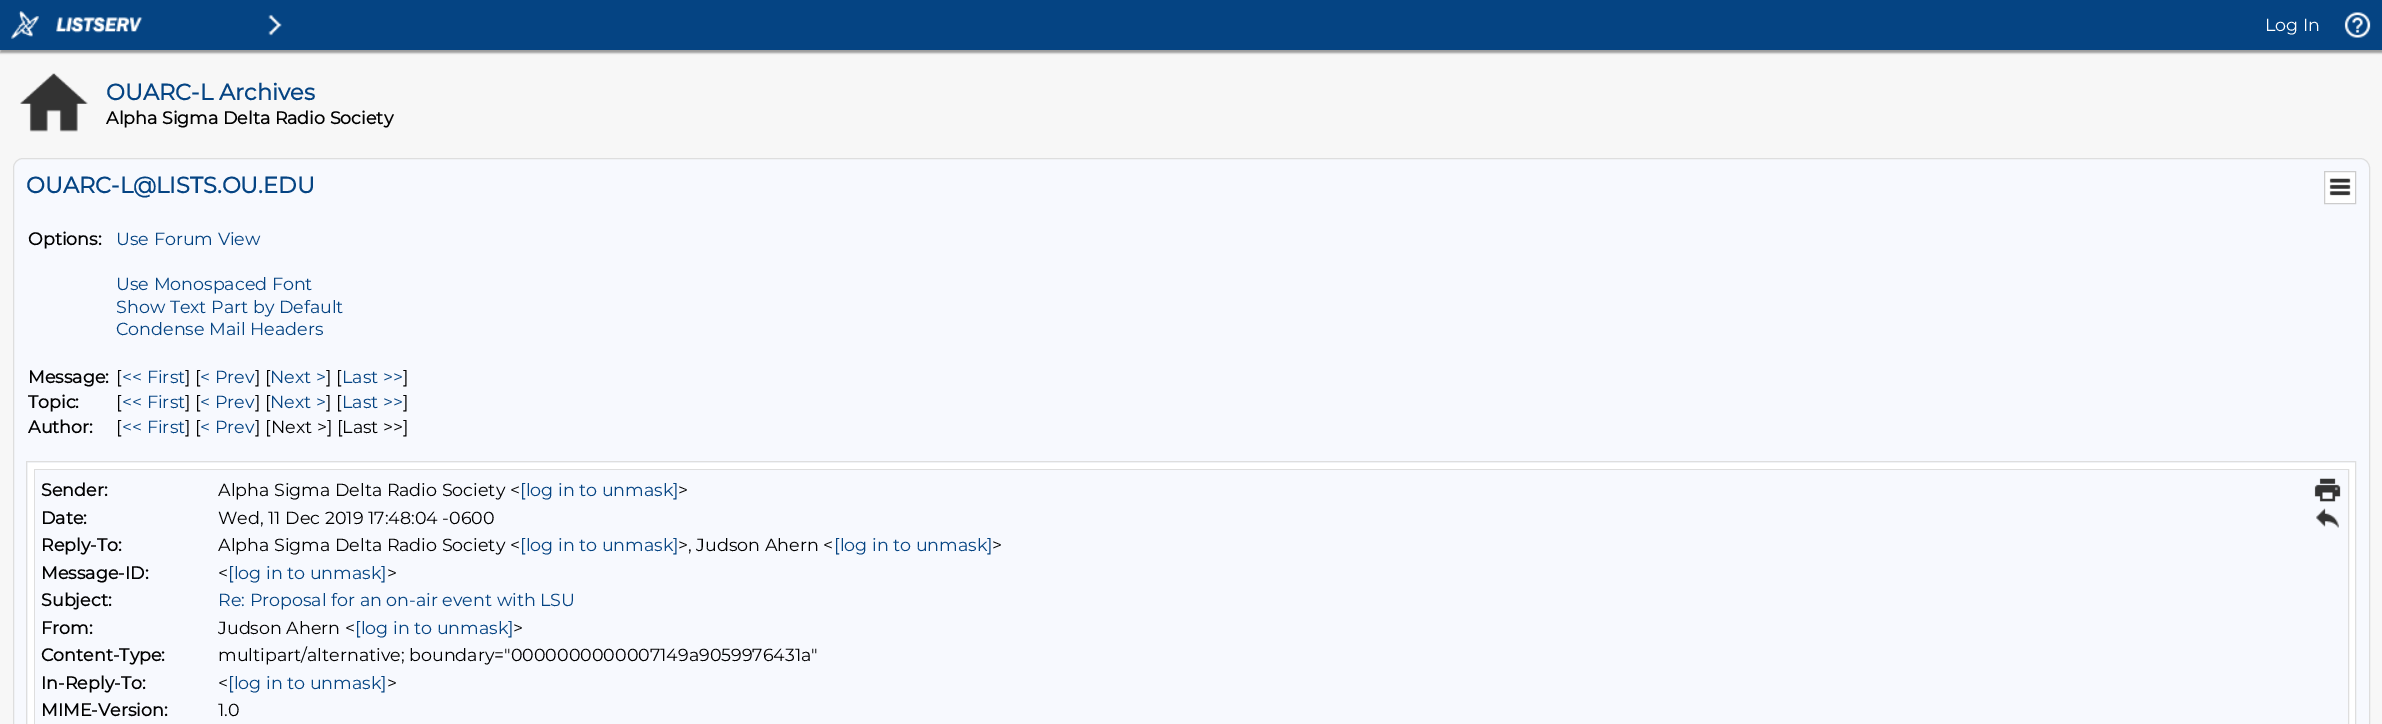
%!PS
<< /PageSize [2382 724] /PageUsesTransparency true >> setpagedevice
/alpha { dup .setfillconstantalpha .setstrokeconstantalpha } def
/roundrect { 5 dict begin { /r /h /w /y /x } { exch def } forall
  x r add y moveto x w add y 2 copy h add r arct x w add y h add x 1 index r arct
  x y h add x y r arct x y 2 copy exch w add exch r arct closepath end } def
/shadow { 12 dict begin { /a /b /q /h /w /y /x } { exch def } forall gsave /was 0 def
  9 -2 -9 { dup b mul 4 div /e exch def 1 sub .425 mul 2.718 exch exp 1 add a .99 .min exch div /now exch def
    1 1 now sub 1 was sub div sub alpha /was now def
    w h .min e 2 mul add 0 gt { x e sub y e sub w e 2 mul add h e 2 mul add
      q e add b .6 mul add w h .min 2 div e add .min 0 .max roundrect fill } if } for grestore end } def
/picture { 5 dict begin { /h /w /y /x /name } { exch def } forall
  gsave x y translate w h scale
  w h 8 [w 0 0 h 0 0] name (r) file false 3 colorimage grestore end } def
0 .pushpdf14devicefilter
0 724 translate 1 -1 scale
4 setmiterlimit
0.969 setgray
0 0 2382 724 rectfill
0.6 setgray
0 3 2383 50 0 1 1 shadow
0.02 0.267 0.514 setrgbcolor
0 0 2382 50 rectfill
(img1.rgb) 11 11 28 28 picture
(img2.rgb) 56 17 87 16 picture
(img3.rgb) 268 14 14 22 picture
/Montserrat-Thin [17.5 0 0 -17.5 0 0] selectfont
1 setgray
2265 31 moveto (Log In) show
(img4.rgb) 2344 12 27 26 picture
(img5.rgb) 20 73 68 59 picture
/Montserrat-Bold [22.5 0 0 -22.5 0 0] selectfont
0.02 0.267 0.514 setrgbcolor
106 100 moveto (OUARC-L Archives) show
/Montserrat-Bold [17.5 0 0 -17.5 0 0] selectfont
0 setgray
106 124 moveto (Alpha Sigma Delta Radio Society) show
0.969 0.976 0.996 setrgbcolor
13.5 158.5 2356 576 9.5 roundrect gsave fill grestore
0.871 setgray
stroke
/Montserrat-Bold [22.5 0 0 -22.5 0 0] selectfont
0.02 0.267 0.514 setrgbcolor
26 193 moveto (OUARC-L@LISTS.OU.EDU) show
1 setgray
newpath 2324.5 171.5 moveto 2355.5 171.5 lineto 2355.5 203.5 lineto 2324.5 203.5 lineto closepath gsave fill grestore
0.8 setgray
stroke
(img6.rgb) 2329 178 22 18 picture
/Montserrat-Bold [17.5 0 0 -17.5 0 0] selectfont
0 setgray
28 245 moveto (Options:) show
/Montserrat-Thin [17.5 0 0 -17.5 0 0] selectfont
0.02 0.267 0.514 setrgbcolor
116 245 moveto (Use Forum View) show
116 290 moveto (Use Monospaced Font) show
116 313 moveto (Show Text Part by Default) show
116 335 moveto (Condense Mail Headers) show
/Montserrat-Bold [17.5 0 0 -17.5 0 0] selectfont
0 setgray
28 383 moveto (Message:) show
/Montserrat-Thin [17.5 0 0 -17.5 0 0] selectfont
116 383 moveto ([) show
0.02 0.267 0.514 setrgbcolor
122 383 moveto (<< First) show
0 setgray
185 383 moveto (] [) show
0.02 0.267 0.514 setrgbcolor
200 383 moveto (< Prev) show
0 setgray
255 383 moveto (] [) show
0.02 0.267 0.514 setrgbcolor
270 383 moveto (Next >) show
0 setgray
326 383 moveto (] [) show
0.02 0.267 0.514 setrgbcolor
342 383 moveto (Last >>) show
0 setgray
403 383 moveto (]) show
/Montserrat-Bold [17.5 0 0 -17.5 0 0] selectfont
28 408 moveto (Topic:) show
/Montserrat-Thin [17.5 0 0 -17.5 0 0] selectfont
116 408 moveto ([) show
0.02 0.267 0.514 setrgbcolor
122 408 moveto (<< First) show
0 setgray
185 408 moveto (] [) show
0.02 0.267 0.514 setrgbcolor
200 408 moveto (< Prev) show
0 setgray
255 408 moveto (] [) show
0.02 0.267 0.514 setrgbcolor
270 408 moveto (Next >) show
0 setgray
326 408 moveto (] [) show
0.02 0.267 0.514 setrgbcolor
342 408 moveto (Last >>) show
0 setgray
403 408 moveto (]) show
/Montserrat-Bold [17.5 0 0 -17.5 0 0] selectfont
28 433 moveto (Author:) show
/Montserrat-Thin [17.5 0 0 -17.5 0 0] selectfont
116 433 moveto ([) show
0.02 0.267 0.514 setrgbcolor
122 433 moveto (<< First) show
0 setgray
185 433 moveto (] [) show
0.02 0.267 0.514 setrgbcolor
200 433 moveto (< Prev) show
0 setgray
255 433 moveto (] [Next >] [Last >>]) show
0.871 setgray
26.5 461.5 2329 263 rectstroke
1 setgray
28 463 2327 261 rectfill
0.871 setgray
34.5 469.5 2314 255 rectstroke
0.969 0.976 0.996 setrgbcolor
35 470 2313 254 rectfill
/Montserrat-Bold [17.5 0 0 -17.5 0 0] selectfont
0 setgray
41 496 moveto (Sender:) show
/Montserrat-Thin [17.5 0 0 -17.5 0 0] selectfont
218 496 moveto (Alpha Sigma Delta Radio Society <) show
0.02 0.267 0.514 setrgbcolor
520 496 moveto ([log in to unmask]) show
0 setgray
678 496 moveto (>) show
/Montserrat-Bold [17.5 0 0 -17.5 0 0] selectfont
41 524 moveto (Date:) show
/Montserrat-Thin [17.5 0 0 -17.5 0 0] selectfont
218 524 moveto (Wed, 11 Dec 2019 17:48:04 -0600) show
/Montserrat-Bold [17.5 0 0 -17.5 0 0] selectfont
41 551 moveto (Reply-To:) show
/Montserrat-Thin [17.5 0 0 -17.5 0 0] selectfont
218 551 moveto (Alpha Sigma Delta Radio Society <) show
0.02 0.267 0.514 setrgbcolor
520 551 moveto ([log in to unmask]) show
0 setgray
678 551 moveto (>, Judson Ahern <) show
0.02 0.267 0.514 setrgbcolor
834 551 moveto ([log in to unmask]) show
0 setgray
992 551 moveto (>) show
/Montserrat-Bold [17.5 0 0 -17.5 0 0] selectfont
41 579 moveto (Message-ID:) show
/Montserrat-Thin [17.5 0 0 -17.5 0 0] selectfont
218 579 moveto (<) show
0.02 0.267 0.514 setrgbcolor
228 579 moveto ([log in to unmask]) show
0 setgray
387 579 moveto (>) show
/Montserrat-Bold [17.5 0 0 -17.5 0 0] selectfont
41 606 moveto (Subject:) show
/Montserrat-Thin [17.5 0 0 -17.5 0 0] selectfont
0.02 0.267 0.514 setrgbcolor
218 606 moveto (Re: Proposal for an on-air event with LSU) show
/Montserrat-Bold [17.5 0 0 -17.5 0 0] selectfont
0 setgray
41 634 moveto (From:) show
/Montserrat-Thin [17.5 0 0 -17.5 0 0] selectfont
218 634 moveto (Judson Ahern <) show
0.02 0.267 0.514 setrgbcolor
355 634 moveto ([log in to unmask]) show
0 setgray
513 634 moveto (>) show
/Montserrat-Bold [17.5 0 0 -17.5 0 0] selectfont
41 661 moveto (Content-Type:) show
/Montserrat-Thin [17.5 0 0 -17.5 0 0] selectfont
218 661 moveto (multipart/alternative; boundary="0000000000007149a9059976431a") show
/Montserrat-Bold [17.5 0 0 -17.5 0 0] selectfont
41 689 moveto (In-Reply-To:) show
/Montserrat-Thin [17.5 0 0 -17.5 0 0] selectfont
218 689 moveto (<) show
0.02 0.267 0.514 setrgbcolor
228 689 moveto ([log in to unmask]) show
0 setgray
387 689 moveto (>) show
/Montserrat-Bold [17.5 0 0 -17.5 0 0] selectfont
41 716 moveto (MIME-Version:) show
/Montserrat-Thin [17.5 0 0 -17.5 0 0] selectfont
218 716 moveto (1.0) show
(img7.rgb) 2314 478 27 24 picture
(img8.rgb) 2316 508 23 20 picture
.poppdf14devicefilter showpage
